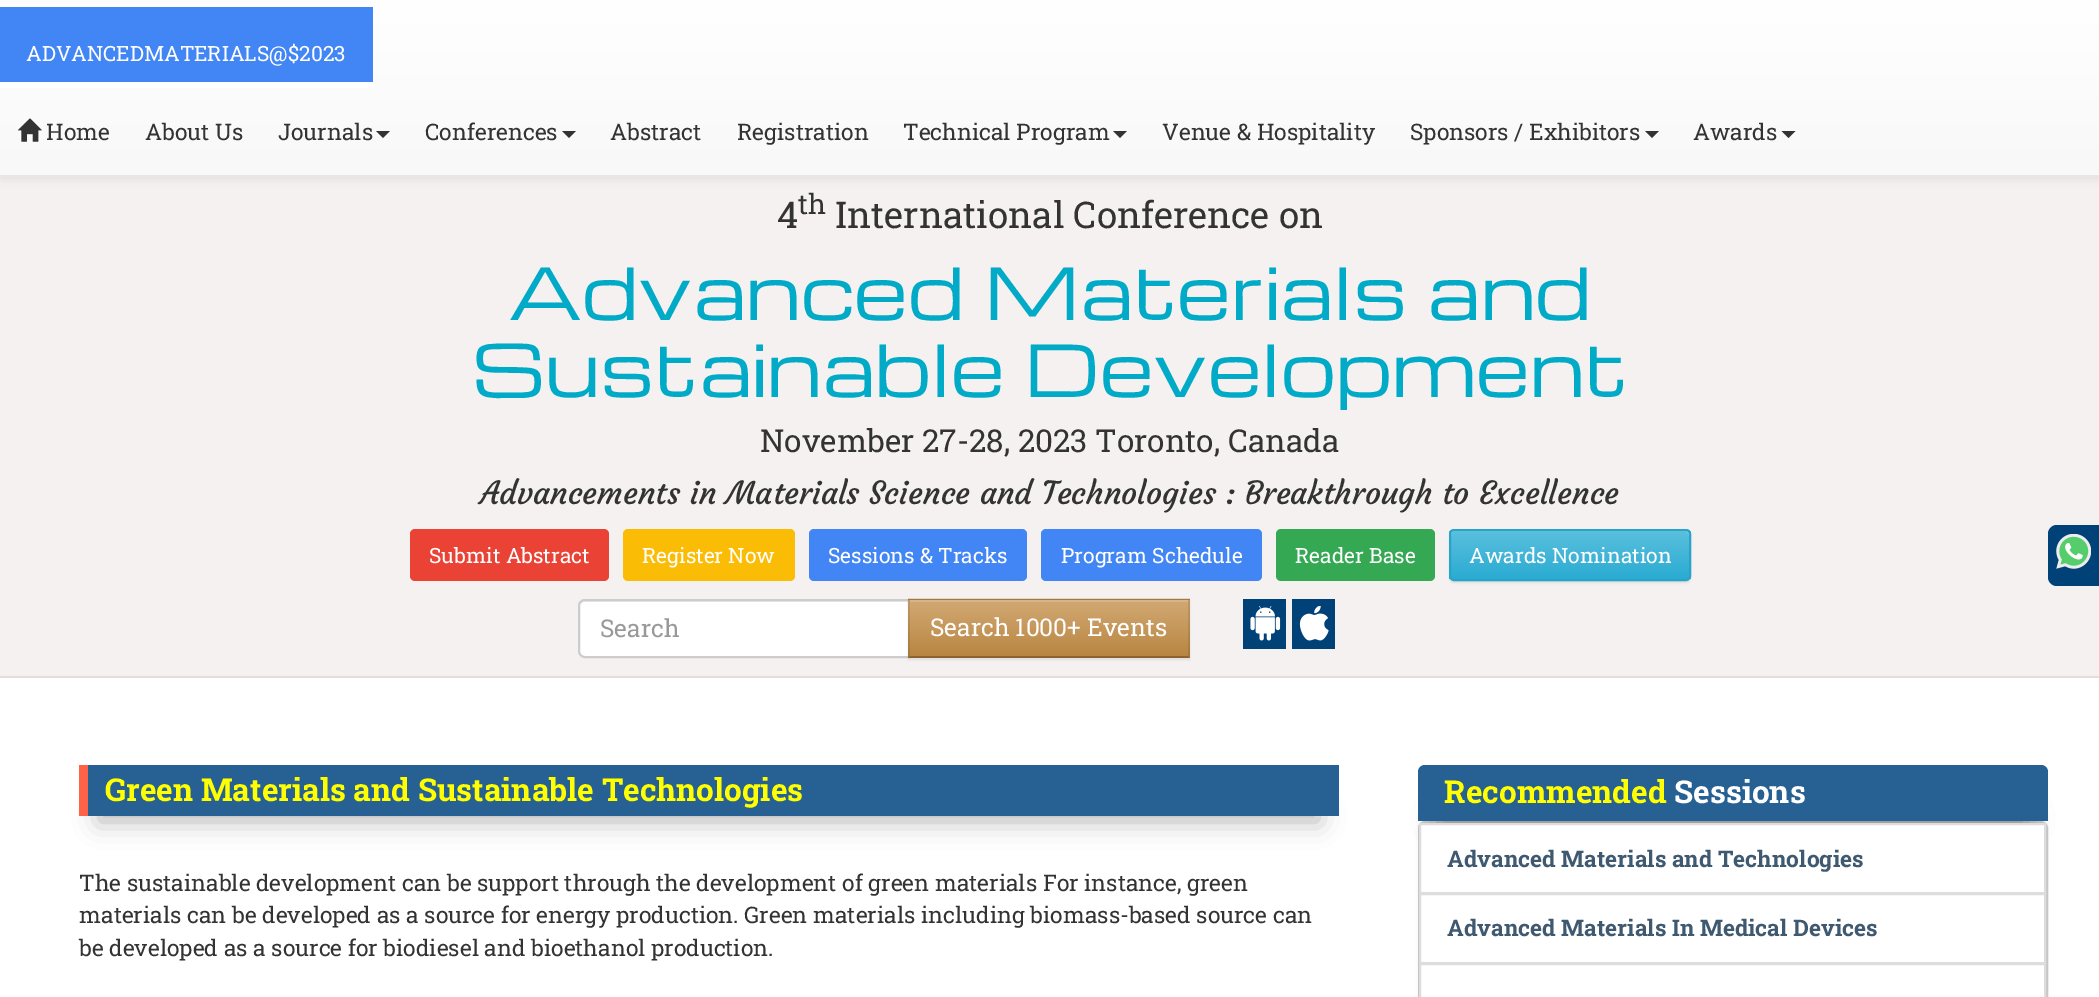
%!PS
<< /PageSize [2099 997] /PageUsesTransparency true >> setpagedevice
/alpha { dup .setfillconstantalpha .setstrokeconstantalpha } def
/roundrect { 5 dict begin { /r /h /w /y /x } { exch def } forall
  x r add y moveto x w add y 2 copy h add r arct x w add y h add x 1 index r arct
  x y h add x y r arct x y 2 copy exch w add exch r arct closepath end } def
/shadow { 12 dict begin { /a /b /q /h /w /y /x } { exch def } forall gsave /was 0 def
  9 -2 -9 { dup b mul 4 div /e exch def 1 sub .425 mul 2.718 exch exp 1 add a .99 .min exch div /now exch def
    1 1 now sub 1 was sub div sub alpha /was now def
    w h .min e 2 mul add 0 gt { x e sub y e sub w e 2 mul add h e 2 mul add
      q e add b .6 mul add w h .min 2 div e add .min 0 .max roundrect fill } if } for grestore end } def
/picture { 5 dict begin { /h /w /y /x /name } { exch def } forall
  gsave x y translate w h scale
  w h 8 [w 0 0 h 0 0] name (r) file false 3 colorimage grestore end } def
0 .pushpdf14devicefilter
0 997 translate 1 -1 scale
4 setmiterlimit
1 setgray
0 0 2099 997 rectfill
0.961 0.945 0.941 setrgbcolor
0 177 2099 499 rectfill
0 setgray
0 2 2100 177 0 4.5 0.07 shadow
gsave newpath 0 0 moveto 2099 0 lineto 2099 175 lineto 0 175 lineto closepath clip newpath
<< /ShadingType 2 /ColorSpace /DeviceRGB /Coords [1050 0 1050 175] /Extend [true true] /Function << /FunctionType 2 /Domain [0 1] /C0 [1 1 1] /C1 [0.973 0.973 0.973] /N 1 >> >> shfill grestore
0.906 setgray
0 175 2099 2 rectfill
1 setgray
0 63 373 25 rectfill
0.259 0.522 0.957 setrgbcolor
0 7 373 75 rectfill
/RobotoSlab-Regular [21 0 0 -21 0 0] selectfont
1 setgray
26 61 moveto (ADVANCEDMATERIALS@$2023) show
(img1.rgb) 17 118 25 24 picture
/RobotoSlab-Regular [22.75 0 0 -22.75 0 0] selectfont
0.2 setgray
46 140 moveto (Home) show
145 140 moveto (About Us) show
278 140 moveto (Journals) show
newpath 376 131 moveto 390 131 lineto 383 138 lineto closepath fill
425 140 moveto (Conferences) show
newpath 562 131 moveto 576 131 lineto 569 138 lineto closepath fill
610 140 moveto (Abstract) show
737 140 moveto (Registration) show
903 140 moveto (Technical Program) show
newpath 1113 131 moveto 1127 131 lineto 1120 138 lineto closepath fill
1162 140 moveto (Venue & Hospitality) show
1410 140 moveto (Sponsors / Exhibitors) show
newpath 1645 131 moveto 1659 131 lineto 1652 138 lineto closepath fill
1693 140 moveto (Awards) show
newpath 1781.5 131 moveto 1795.5 131 lineto 1788.5 138 lineto closepath fill
0.902 0.867 0.859 setrgbcolor
0 676 2099 2 rectfill
/RobotoSlab-Regular [36.75 0 0 -36.75 0 0] selectfont
0.2 setgray
777 228 moveto (4) show
/RobotoSlab-Regular [28 0 0 -28 0 0] selectfont
798 214 moveto (th) show
/RobotoSlab-Regular [36.75 0 0 -36.75 0 0] selectfont
835 228 moveto (International Conference on) show
/Michroma-Regular [70 0 0 -70 0 0] selectfont
0.004 0.667 0.78 setrgbcolor
508 320 moveto (Advanced Materials and) show
472 397 moveto (Sustainable Development) show
/RobotoSlab-Regular [31.5 0 0 -31.5 0 0] selectfont
0.2 setgray
760 452 moveto (November 27-28, 2023 Toronto, Canada) show
/Courgette-Regular [31.5 0 0 -31.5 0 0] selectfont
480 504 moveto (Advancements in Materials Science and Technologies : Breakthrough to Excellence) show
0.918 0.263 0.208 setrgbcolor
410 529 199 52 5 roundrect fill
/RobotoSlab-Regular [21 0 0 -21 0 0] selectfont
1 setgray
429 563 moveto (Submit Abstract) show
0.984 0.737 0.02 setrgbcolor
623 529 172 52 5 roundrect fill
1 setgray
642 563 moveto (Register Now) show
0.259 0.522 0.957 setrgbcolor
809 529 218 52 5 roundrect fill
1 setgray
828 563 moveto (Sessions & Tracks) show
0.259 0.522 0.957 setrgbcolor
1041 529 221 52 5 roundrect fill
1 setgray
1061 563 moveto (Program Schedule) show
0.204 0.659 0.325 setrgbcolor
1276 529 159 52 5 roundrect fill
1 setgray
1295 563 moveto (Reader Base) show
0 setgray
1449 530 242 53 5 1 0.07 shadow
gsave
1449 529 242 52 5 roundrect clip newpath
gsave newpath 1449 530 moveto 1691 530 lineto 1691 579 lineto 1449 579 lineto closepath clip newpath
<< /ShadingType 2 /ColorSpace /DeviceRGB /Coords [1570 530 1570 579] /Extend [true true] /Function << /FunctionType 2 /Domain [0 1] /C0 [0.357 0.753 0.871] /C1 [0.165 0.671 0.824] /N 1 >> >> shfill grestore
grestore
0.15 alpha
1 setgray
newpath 1454 532 moveto 1685 532 lineto 1687 532 1689 534 1689 536 curveto 1689 534 lineto 1689 532 1687 530 1685 530 curveto 1455 530 lineto 1453 530 1451 532 1451 534 curveto 1451 536 lineto 1451 534 1452 532 1454 532 curveto closepath fill
1 alpha
0.157 0.643 0.788 setrgbcolor
2 setlinewidth
1450 530 240 50 4 roundrect stroke
1 setgray
1469 563 moveto (Awards Nomination) show
newpath 585 599 moveto 910 599 lineto 910 658 lineto 585 658 lineto 581 658 578 655 578 651 curveto 578 606 lineto 578 602 581 599 585 599 curveto closepath fill
0.925 setgray
newpath 584 602 moveto 908 602 lineto 908 600 lineto 584 600 lineto 581 600 579 602 579 605 curveto 579 607 lineto 579 604 582 602 584 602 curveto closepath fill
0.8 setgray
newpath 585 600 moveto 909 600 lineto 909 657 lineto 585 657 lineto 581.5 657 579 654.5 579 651 curveto 579 606 lineto 579 602.5 581.5 600 585 600 curveto closepath stroke
/RobotoSlab-Regular [24.5 0 0 -24.5 0 0] selectfont
0.6 setgray
600 637 moveto (Search) show
0 setgray
908 600 282 60 0 1 0.07 shadow
0.725 0.525 0.259 setrgbcolor
908 599 282 59 rectfill
gsave newpath 908 600 moveto 1190 600 lineto 1190 653 lineto 908 653 lineto closepath clip newpath
<< /ShadingType 2 /ColorSpace /DeviceRGB /Coords [1049 600 1049 656] /Extend [true true] /Function << /FunctionType 2 /Domain [0 1] /C0 [0.824 0.663 0.451] /C1 [0.725 0.525 0.259] /N 1 >> >> shfill grestore
0.847 0.71 0.533 setrgbcolor
910 600 278 2 rectfill
0.1 alpha
0 setgray
newpath 908 598 moveto 1190 598 lineto 1188 600 lineto 910 600 lineto closepath fill
newpath 1190 598 moveto 1190 658 lineto 1188 656 lineto 1188 600 lineto closepath fill
0.25 alpha
newpath 1190 658 moveto 908 658 lineto 910 656 lineto 1188 656 lineto closepath fill
0.1 alpha
newpath 908 658 moveto 908 598 lineto 910 600 lineto 910 656 lineto closepath fill
1 alpha
1 setgray
930 636 moveto (Search 1000+ Events) show
0 0.255 0.471 setrgbcolor
1243 599 43 50 rectfill
(img2.rgb) 1250 606 31 35 picture
1292 599 43 50 rectfill
(img3.rgb) 1299 606 30 35 picture
newpath 2057 525 moveto 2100 525 lineto 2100 586 lineto 2057 586 lineto 2052 586 2048 582 2048 577 curveto 2048 534 lineto 2048 529 2052 525 2057 525 curveto closepath fill
(img4.rgb) 2056 534 35 35 picture
0 setgray
100 812 1218 9 0 13 0.3 shadow
0.153 0.376 0.573 setrgbcolor
88 765 1251 51 rectfill
1 0.388 0.278 setrgbcolor
79 765 9 51 rectfill
/RobotoSlab-Bold [31.5 0 0 -31.5 0 0] selectfont
1 1 0 setrgbcolor
105 801 moveto (Green Materials and Sustainable Technologies) show
/RobotoSlab-Regular [22.75 0 0 -22.75 0 0] selectfont
0.2 setgray
79 891 moveto (The sustainable development can be support through the development of green materials For instance, green) show
79 923 moveto (materials can be developed as a source for energy production. Green materials including biomass-based source can) show
79 956 moveto (be developed as a source for biodiesel and bioethanol production.) show
0.8 setgray
1419 822 628 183 6 roundrect stroke
0 setgray
1439 812 588 14 0 13 0.3 shadow
1419 824 627 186 7 2 0.07 shadow
0.153 0.376 0.573 setrgbcolor
newpath 1425 765 moveto 2041 765 lineto 2045 765 2048 768 2048 772 curveto 2048 821 lineto 1418 821 lineto 1418 772 lineto 1418 768 1421 765 1425 765 curveto closepath fill
/RobotoSlab-Bold [31.5 0 0 -31.5 0 0] selectfont
1 1 0 setrgbcolor
1444 803 moveto (Recommended) show
1 setgray
1674 803 moveto (Sessions) show
newpath 1420 824 moveto 2045 824 lineto 2045 893 lineto 1420 893 lineto closepath gsave fill grestore
0.867 setgray
stroke
/RobotoSlab-Bold [22.75 0 0 -22.75 0 0] selectfont
0.243 0.349 0.439 setrgbcolor
1447 867 moveto (Advanced Materials and Technologies) show
1 setgray
newpath 1420 894 moveto 2045 894 lineto 2045 963 lineto 1420 963 lineto closepath gsave fill grestore
0.867 setgray
stroke
0.243 0.349 0.439 setrgbcolor
1447 936 moveto (Advanced Materials In Medical Devices) show
1 setgray
newpath 1420 964 moveto 2045 964 lineto 2045 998 lineto 1420 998 lineto closepath gsave fill grestore
0.867 setgray
stroke
.poppdf14devicefilter showpage
